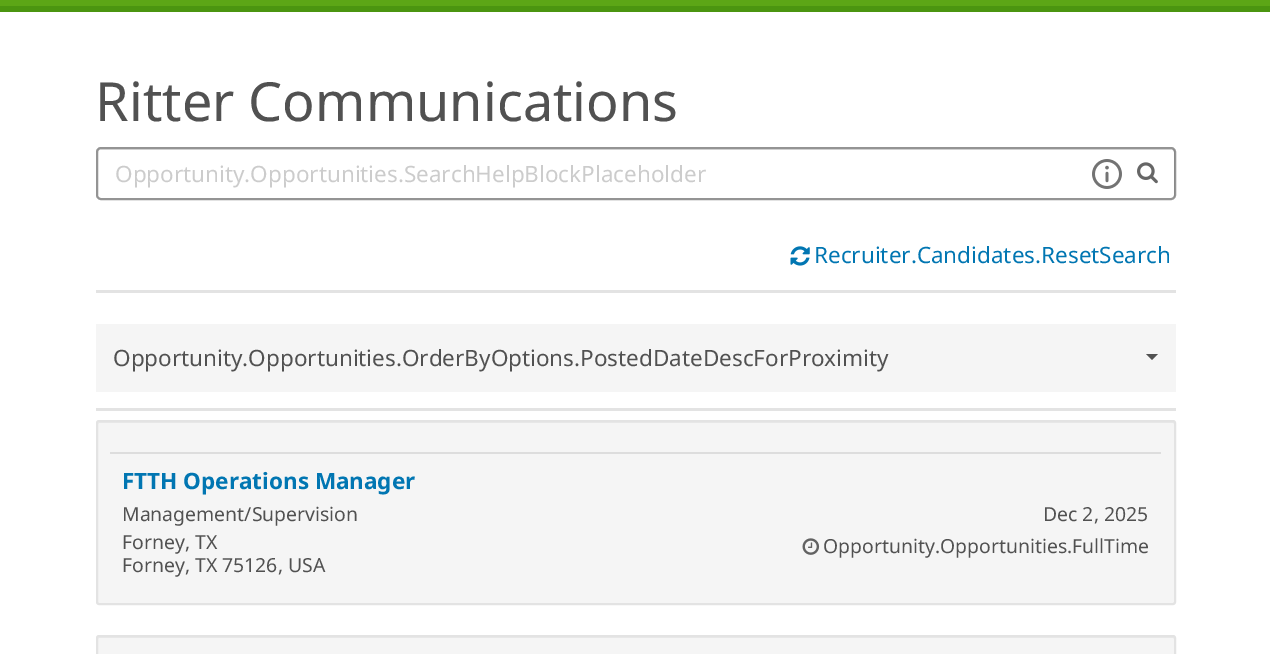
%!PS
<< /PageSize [1270 654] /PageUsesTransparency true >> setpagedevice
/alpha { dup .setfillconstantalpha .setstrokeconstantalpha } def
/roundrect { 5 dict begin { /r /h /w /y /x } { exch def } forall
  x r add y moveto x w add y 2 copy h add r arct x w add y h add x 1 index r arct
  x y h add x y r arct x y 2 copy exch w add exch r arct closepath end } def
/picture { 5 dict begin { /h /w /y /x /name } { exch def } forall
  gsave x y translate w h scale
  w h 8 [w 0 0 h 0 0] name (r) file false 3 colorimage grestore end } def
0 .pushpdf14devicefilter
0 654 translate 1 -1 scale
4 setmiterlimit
1 setgray
0 0 1270 654 rectfill
0.361 0.651 0.086 setrgbcolor
0 0 1270 6 rectfill
0.294 0.584 0.063 setrgbcolor
0 6 1270 6 rectfill
/NotoSans-Regular [54 0 0 -54 0 0] selectfont
0.318 setgray
95 121 moveto (Ritter Communications) show
0.925 setgray
newpath 100 150 moveto 1172 150 lineto 1173 150 1174 151 1174 153 curveto 1174 197 lineto 1175 197 1175 196 1175 195 curveto 1175 152 lineto 1175 150 1174 149 1172 149 curveto 101 149 lineto 99 149 98 150 98 152 curveto 98 153 lineto 98 151 99 150 100 150 curveto closepath fill
0.42 alpha
0 setgray
2 setlinewidth
97 148 1078 51 4 roundrect stroke
/NotoSans-Regular [22.5 0 0 -22.5 0 0] selectfont
1 alpha
0.8 setgray
115 182 moveto (Opportunity.Opportunities.SearchHelpBlockPlaceholder) show
(img1.rgb) 1092 159 30 30 picture
(img2.rgb) 1137 162 21 22 picture
(img3.rgb) 790 246 20 20 picture
0.004 0.463 0.698 setrgbcolor
814 263 moveto (Recruiter.Candidates.ResetSearch) show
0.89 setgray
96 290 1080 3 rectfill
96 408 1080 3 rectfill
0.961 setgray
96 324 1080 68 rectfill
0.318 setgray
113 366 moveto (Opportunity.Opportunities.OrderByOptions.PostedDateDescForProximity) show
newpath 1146 354 moveto 1158 354 lineto 1152 360 lineto closepath fill
0.961 setgray
96 420 1080 185 3 roundrect fill
0.914 setgray
newpath 99 423 moveto 1173 423 lineto 1174 423 1174 424 1174 424 curveto 1174 603 lineto 1175 602 lineto 1175 424 lineto 1175 423 1174 422 1174 422 curveto 100 422 lineto 98 422 98 423 98 424 curveto closepath fill
0.89 setgray
97 421 1078 183 2 roundrect stroke
0.867 setgray
110 452 1051 2 rectfill
/NotoSans-Bold [22.5 0 0 -22.5 0 0] selectfont
0.004 0.463 0.698 setrgbcolor
122 489 moveto (FTTH Operations Manager) show
/NotoSans-Regular [19.4 0 0 -19.4 0 0] selectfont
0.318 setgray
122 521 moveto (Management/Supervision) show
122 549 moveto (Forney, TX) show
122 572 moveto (Forney, TX 75126, USA) show
1043 521 moveto (Dec 2, 2025) show
(img4.rgb) 802 538 18 17 picture
823 553 moveto (Opportunity.Opportunities.FullTime) show
0.961 setgray
96 635 1080 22 3 roundrect fill
0.914 setgray
newpath 99 638 moveto 1173 638 lineto 1174 638 1174 638 1174 639 curveto 1174 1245 lineto 1175 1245 1175 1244 1175 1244 curveto 1175 638 lineto 1175 637 1174 636 1174 636 curveto 100 636 lineto 99 636 98 637 98 638 curveto 98 639 lineto 98 638 98 638 99 638 curveto closepath fill
0.89 setgray
97 636 1078 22 2 roundrect stroke
.poppdf14devicefilter showpage
